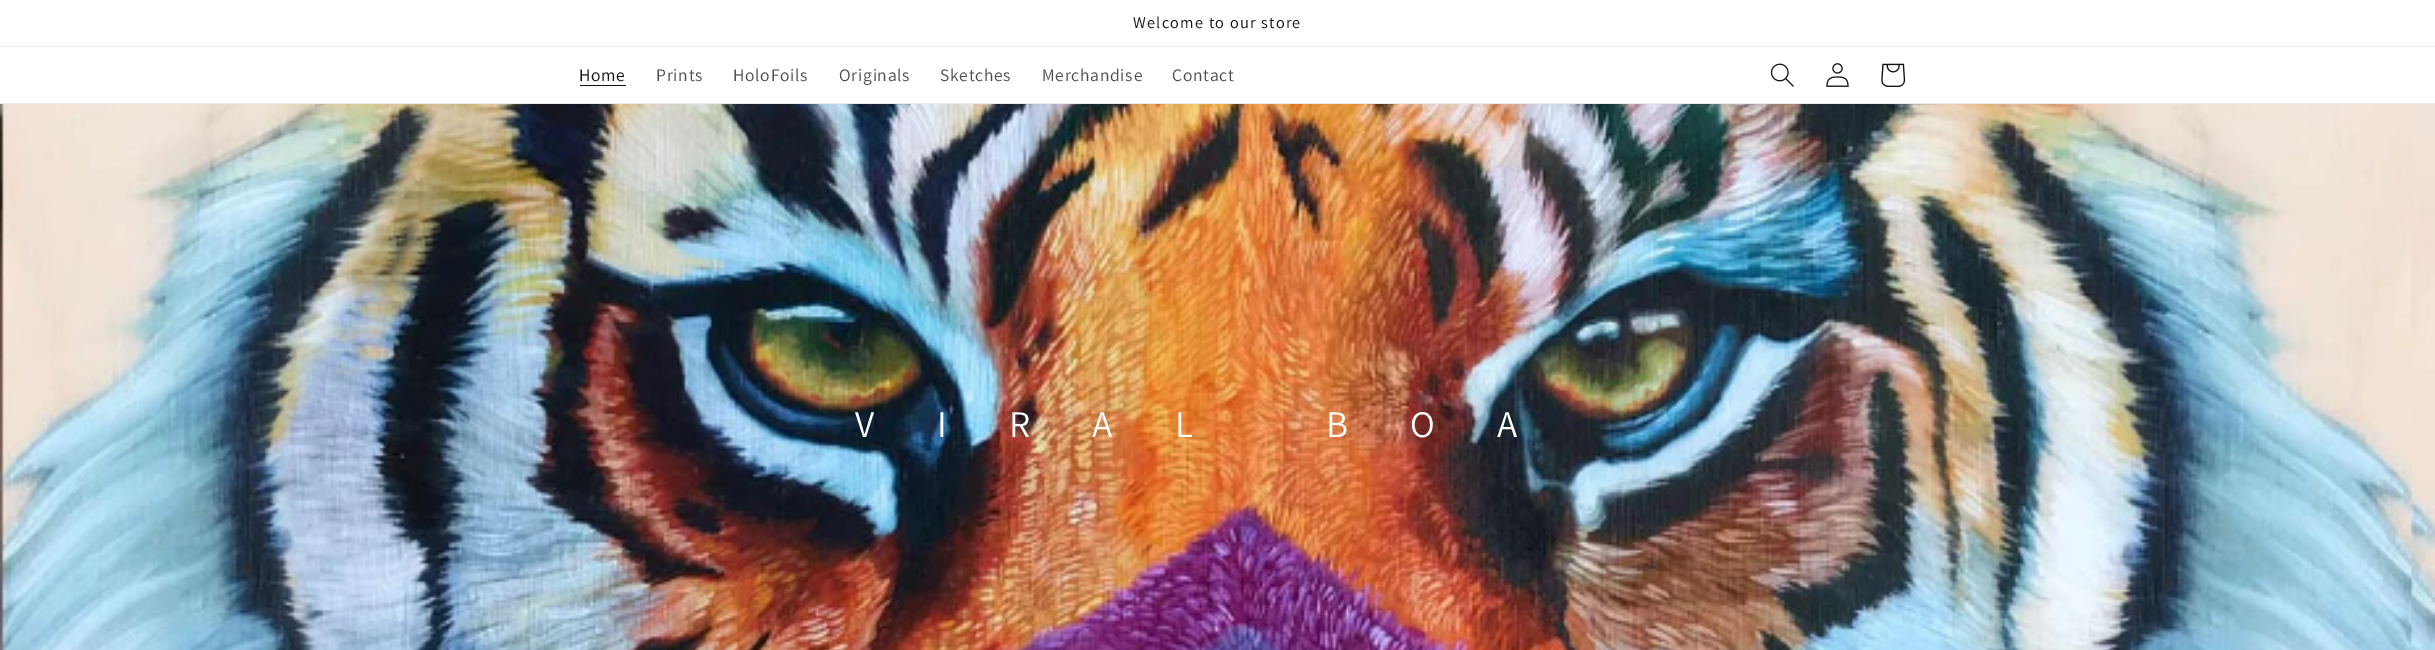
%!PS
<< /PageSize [2435 650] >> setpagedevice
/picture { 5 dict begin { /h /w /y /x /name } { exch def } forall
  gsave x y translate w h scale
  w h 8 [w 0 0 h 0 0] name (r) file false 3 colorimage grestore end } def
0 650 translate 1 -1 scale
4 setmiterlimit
1 setgray
0 0 2435 650 rectfill
0.925 setgray
0 46 2435 1 rectfill
/Assistant-Regular [16.25 0 0 -16.25 0 0] selectfont
0.071 setgray
1133 28 moveto 1.25 0 (Welcome to our store) ashow
0.925 setgray
0 103 2435 1 rectfill
/Assistant-Regular [17.5 0 0 -17.5 0 0] selectfont
0.071 setgray
579 81 moveto 0.75 0 (Home) ashow
580 85 46 1 rectfill
0.302 setgray
656 81 moveto 0.75 0 (Prints) ashow
733 81 moveto 0.75 0 (HoloFoils) ashow
839 81 moveto 0.75 0 (Originals) ashow
940 81 moveto 0.75 0 (Sketches) ashow
1042 81 moveto 0.75 0 (Merchandise) ashow
1172 81 moveto 0.75 0 (Contact) ashow
(img1.rgb) 1770 63 24 24 picture
(img2.rgb) 1826 63 23 24 picture
(img3.rgb) 1881 63 25 24 picture
(img4.rgb) 0 104 2435 546 picture
/Assistant-Regular [37.5 0 0 -37.5 0 0] selectfont
1 setgray
855 437 moveto 62.5 0 (VIRAL BOA) ashow
showpage
